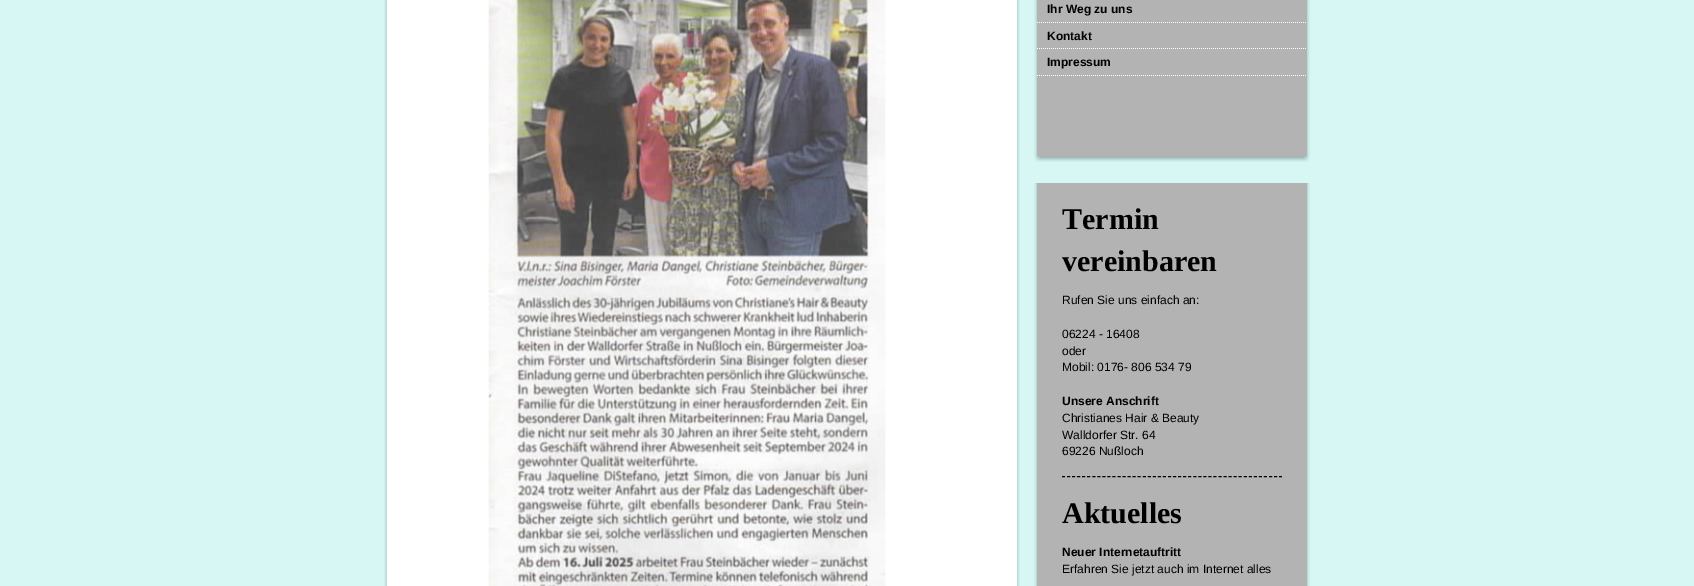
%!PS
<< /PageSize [1694 586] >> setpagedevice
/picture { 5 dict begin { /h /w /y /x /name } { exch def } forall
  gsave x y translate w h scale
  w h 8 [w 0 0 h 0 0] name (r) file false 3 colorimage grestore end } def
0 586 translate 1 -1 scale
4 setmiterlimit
0.843 0.969 0.961 setrgbcolor
0 0 1694 586 rectfill
(img1.rgb) 384 0 636 586 picture
(img2.rgb) 488 0 398 586 picture
(img3.rgb) 1034 156 276 6 picture
(img4.rgb) 1034 0 276 156 picture
0.702 setgray
1037 0 270 156 rectfill
(img5.rgb) 1037 22 269 1 picture
/LiberationSans-Bold [12 0 0 -12 0 0] selectfont
0 setgray
1047 13 moveto (Ihr Weg zu uns) show
(img5.rgb) 1037 48 269 1 picture
1047 40 moveto (Kontakt) show
(img5.rgb) 1037 75 269 1 picture
1047 66 moveto (Impressum) show
(img6.rgb) 1034 183 276 403 picture
0.702 setgray
1037 183 270 403 rectfill
/LiberationSerif-Bold [30 0 0 -30 0 0] selectfont
0 setgray
1062 229 moveto (Termin) show
1062 271 moveto (vereinbaren) show
/LiberationSans-Regular [12 0 0 -12 0 0] selectfont
1062 304 moveto (Rufen Sie uns einfach an:) show
1062 338 moveto (06224 - 16408) show
1062 355 moveto (oder) show
1062 371 moveto (Mobil: 0176- 806 534 79) show
/LiberationSans-Bold [12 0 0 -12 0 0] selectfont
1062 405 moveto (Unsere Anschrift) show
/LiberationSans-Regular [12 0 0 -12 0 0] selectfont
1062 422 moveto (Christianes Hair & Beauty) show
1062 439 moveto (Walldorfer Str. 64) show
1062 455 moveto (69226 Nußloch) show
[3 2.05] 0 setdash
newpath 1062 476.5 moveto 1282 476.5 lineto stroke
/LiberationSerif-Bold [30 0 0 -30 0 0] selectfont
1062 523 moveto (Aktuelles) show
/LiberationSans-Bold [12 0 0 -12 0 0] selectfont
1062 556 moveto (Neuer Internetauftritt) show
/LiberationSans-Regular [12 0 0 -12 0 0] selectfont
1062 573 moveto (Erfahren Sie jetzt auch im Internet alles) show
showpage
